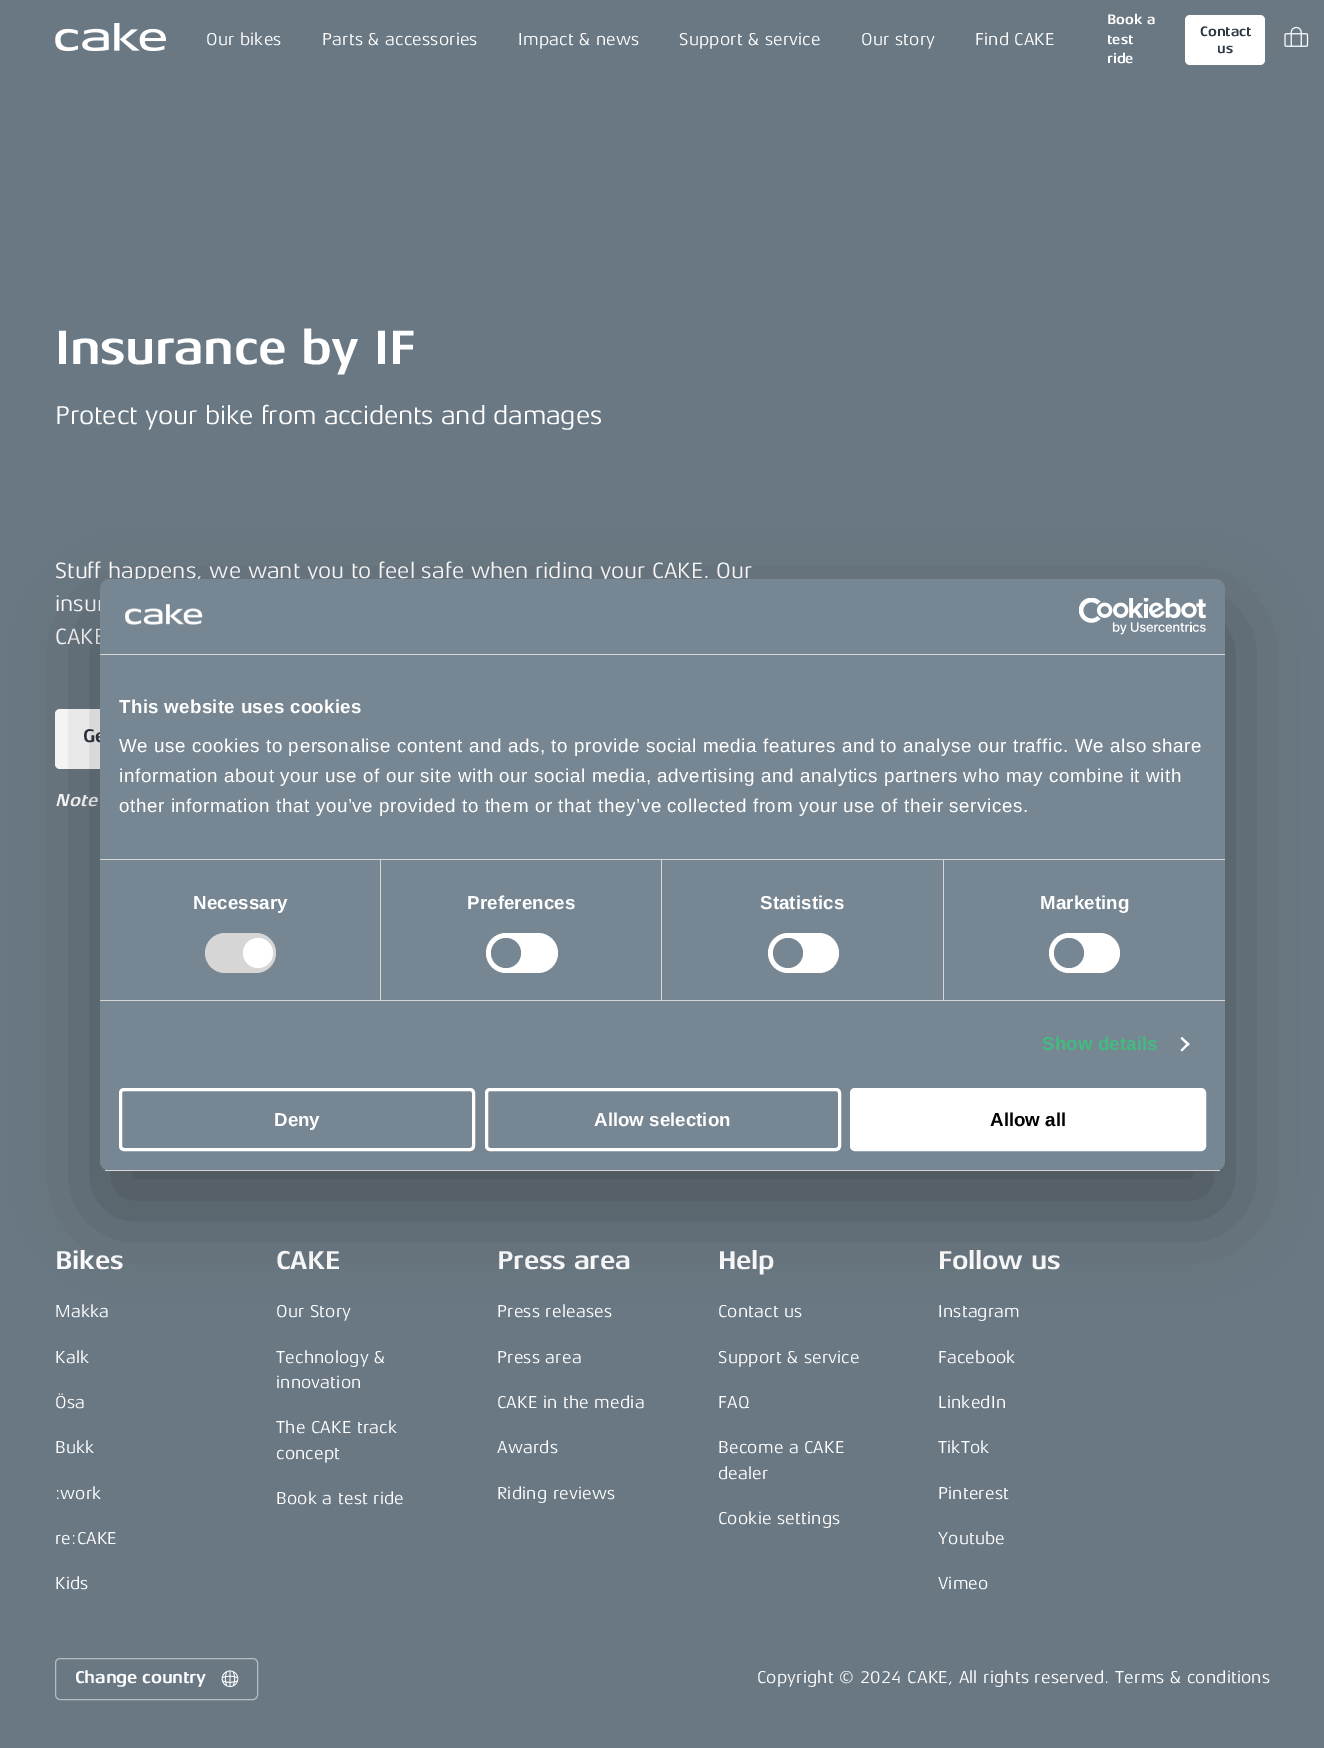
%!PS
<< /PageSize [1324 1748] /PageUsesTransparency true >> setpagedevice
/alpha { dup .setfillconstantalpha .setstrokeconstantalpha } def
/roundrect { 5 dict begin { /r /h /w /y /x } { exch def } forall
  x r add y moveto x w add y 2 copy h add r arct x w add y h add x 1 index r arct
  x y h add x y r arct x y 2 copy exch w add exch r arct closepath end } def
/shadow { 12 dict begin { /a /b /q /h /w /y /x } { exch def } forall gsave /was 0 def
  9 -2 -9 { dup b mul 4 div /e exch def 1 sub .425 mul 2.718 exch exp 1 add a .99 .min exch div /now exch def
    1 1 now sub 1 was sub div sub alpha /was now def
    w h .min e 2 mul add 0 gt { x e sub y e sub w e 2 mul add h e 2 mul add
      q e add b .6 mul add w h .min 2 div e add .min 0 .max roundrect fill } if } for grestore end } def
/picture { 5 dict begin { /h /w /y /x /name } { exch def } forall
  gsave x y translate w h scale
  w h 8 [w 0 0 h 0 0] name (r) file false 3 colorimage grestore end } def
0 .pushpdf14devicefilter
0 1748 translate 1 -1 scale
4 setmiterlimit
0.416 0.471 0.514 setrgbcolor
0 0 1324 1748 rectfill
(img1.rgb) 55 23 111 28 picture
/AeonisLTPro-Regular [17.5 0 0 -17.5 0 0] selectfont
1 setgray
206 45 moveto 0.18 0 (Our bikes) ashow
322 45 moveto 0.18 0 (Parts & accessories) ashow
518 45 moveto 0.18 0 (Impact & news) ashow
679 45 moveto 0.18 0 (Support & service) ashow
861 45 moveto 0.18 0 (Our story) ashow
975 45 moveto 0.18 0 (Find CAKE) ashow
/AeonisLTPro-Bold [14 0 0 -14 0 0] selectfont
1107 24 moveto (Book a) show
1107 44 moveto (test) show
1107 63 moveto (ride) show
1185 15 80 50 5 roundrect fill
0.18 0.22 0.267 setrgbcolor
1200 36 moveto (Contact) show
1217 53 moveto (us) show
(img2.rgb) 1284 26 25 21 picture
/AeonisLTPro-Bold [49 0 0 -49 0 0] selectfont
1 setgray
55 364 moveto -0.5 0 (Insurance by IF) ashow
/AeonisLTPro-Regular [26.25 0 0 -26.25 0 0] selectfont
55 424 moveto -0.25 0 (Protect your bike from accidents and damages) ashow
/AeonisLTPro-Regular [22.5 0 0 -22.5 0 0] selectfont
55 578 moveto (Stuff happens, we want you to feel safe when riding your CAKE. Our) show
55 611 moveto (insur) show
55 644 moveto (CAKE) show
55 709 200 60 5 roundrect fill
/AeonisLTPro-Bold [18.75 0 0 -18.75 0 0] selectfont
0.18 0.22 0.267 setrgbcolor
83 742 moveto (Ge) show
/AeonisLTPro-BoldItalic [17.5 0 0 -17.5 0 0] selectfont
1 setgray
55 806 moveto 0.18 0 (Note) ashow
/AeonisLTPro-Bold [26.25 0 0 -26.25 0 0] selectfont
55 1269 moveto -0.25 0 (Bikes) ashow
/AeonisLTPro-Regular [17.5 0 0 -17.5 0 0] selectfont
55 1317 moveto 0.18 0 (Makka) ashow
55 1363 moveto 0.18 0 (Kalk) ashow
55 1408 moveto 0.18 0 (Ösa) ashow
55 1453 moveto 0.18 0 (Bukk) ashow
55 1499 moveto 0.18 0 (:work) ashow
55 1544 moveto 0.18 0 (re:CAKE) ashow
55 1589 moveto 0.18 0 (Kids) ashow
/AeonisLTPro-Bold [26.25 0 0 -26.25 0 0] selectfont
276 1269 moveto -0.25 0 (CAKE) ashow
/AeonisLTPro-Regular [17.5 0 0 -17.5 0 0] selectfont
276 1317 moveto 0.18 0 (Our Story) ashow
276 1363 moveto 0.18 0 (Technology &) ashow
276 1388 moveto 0.18 0 (innovation) ashow
276 1433 moveto 0.18 0 (The CAKE track) ashow
276 1459 moveto 0.18 0 (concept) ashow
276 1504 moveto 0.18 0 (Book a test ride) ashow
/AeonisLTPro-Bold [26.25 0 0 -26.25 0 0] selectfont
497 1269 moveto -0.25 0 (Press area) ashow
/AeonisLTPro-Regular [17.5 0 0 -17.5 0 0] selectfont
497 1317 moveto 0.18 0 (Press releases) ashow
497 1363 moveto 0.18 0 (Press area) ashow
497 1408 moveto 0.18 0 (CAKE in the media) ashow
497 1453 moveto 0.18 0 (Awards) ashow
497 1499 moveto 0.18 0 (Riding reviews) ashow
/AeonisLTPro-Bold [26.25 0 0 -26.25 0 0] selectfont
718 1269 moveto -0.25 0 (Help) ashow
/AeonisLTPro-Regular [17.5 0 0 -17.5 0 0] selectfont
718 1317 moveto 0.18 0 (Contact us) ashow
718 1363 moveto 0.18 0 (Support & service) ashow
718 1408 moveto 0.18 0 (FAQ) ashow
718 1453 moveto 0.18 0 (Become a CAKE) ashow
718 1479 moveto 0.18 0 (dealer) ashow
718 1524 moveto 0.18 0 (Cookie settings) ashow
/AeonisLTPro-Bold [26.25 0 0 -26.25 0 0] selectfont
938 1269 moveto -0.25 0 (Follow us) ashow
/AeonisLTPro-Regular [17.5 0 0 -17.5 0 0] selectfont
938 1317 moveto 0.18 0 (Instagram) ashow
938 1363 moveto 0.18 0 (Facebook) ashow
938 1408 moveto 0.18 0 (LinkedIn) ashow
938 1453 moveto 0.18 0 (TikTok) ashow
938 1499 moveto 0.18 0 (Pinterest) ashow
938 1544 moveto 0.18 0 (Youtube) ashow
938 1589 moveto 0.18 0 (Vimeo) ashow
0.71 0.737 0.757 setrgbcolor
55.5 1658.5 202 41 4.5 roundrect stroke
/AeonisLTPro-Bold [17.5 0 0 -17.5 0 0] selectfont
1 setgray
75 1683 moveto -0.25 0 (Change country) ashow
(img3.rgb) 221 1670 18 17 picture
/AeonisLTPro-Regular [17.5 0 0 -17.5 0 0] selectfont
757 1683 moveto 0.18 0 (Copyright © 2024 CAKE, All rights reserved. Terms & conditions) ashow
0 setgray
100 619 1125 592 10 42.5 0.3 shadow
0.463 0.525 0.573 setrgbcolor
100 579 1125 592 10 roundrect fill
0.839 setgray
100 654 1125 1 rectfill
(img4.rgb) 125 604 78 21 picture
(img5.rgb) 1079 598 127 37 picture
100 859 1125 1 rectfill
/LiberationSans-Bold [18.75 0 0 -18.75 0 0] selectfont
1 setgray
119 713 moveto 0.3 0 (This website uses cookies) ashow
/LiberationSans-Regular [18.75 0 0 -18.75 0 0] selectfont
119 752 moveto 0.62 0 (We use cookies to personalise content and ads, to provide social media features and to analyse our traffic. We also share) ashow
119 782 moveto 0.62 0 (information about your use of our site with our social media, advertising and analytics partners who may combine it with) ashow
119 812 moveto 0.62 0 (other information that you’ve provided to them or that they’ve collected from your use of their services.) ashow
0.839 setgray
100 1000 1125 1 rectfill
380 860 1 140 rectfill
/LiberationSans-Bold [18.75 0 0 -18.75 0 0] selectfont
1 setgray
193 909 moveto 0.1 0 (Necessary) ashow
0.839 setgray
205 933 71 40 20 roundrect fill
1 setgray
newpath 258 953 15 0 360 arc closepath fill
0.839 setgray
661 860 1 140 rectfill
1 setgray
467 909 moveto 0.1 0 (Preferences) ashow
486 933 72 40 20 roundrect fill
0.463 0.525 0.573 setrgbcolor
newpath 506 953 15 0 360 arc closepath fill
0.839 setgray
943 860 1 140 rectfill
1 setgray
760 909 moveto 0.1 0 (Statistics) ashow
768 933 71 40 20 roundrect fill
0.463 0.525 0.573 setrgbcolor
newpath 788 953 15 0 360 arc closepath fill
1 setgray
1040 909 moveto 0.1 0 (Marketing) ashow
1049 933 71 40 20 roundrect fill
0.463 0.525 0.573 setrgbcolor
newpath 1069 953 15 0 360 arc closepath fill
0.259 0.729 0.502 setrgbcolor
1042 1050 moveto 0.1 0 (Show details) ashow
1 setgray
newpath 1182 1037 moveto 1189.5 1044 lineto 1188 1046 lineto 1180.5 1038.5 lineto closepath fill
newpath 1188 1042.5 moveto 1189.5 1044 lineto 1182 1051.5 lineto 1180.5 1050 lineto closepath fill
gsave
100 579 1125 592 10 roundrect clip newpath
0.839 setgray
100 1170 1125 1 rectfill
grestore
3 setlinewidth
120.5 1089.5 353 60 3.5 roundrect stroke
274 1126 moveto (Deny) show
486.5 1089.5 353 60 3.5 roundrect stroke
594 1126 moveto (Allow selection) show
851.5 1089.5 353 60 3.5 roundrect gsave fill grestore
stroke
0 setgray
990 1126 moveto (Allow all) show
.poppdf14devicefilter showpage
